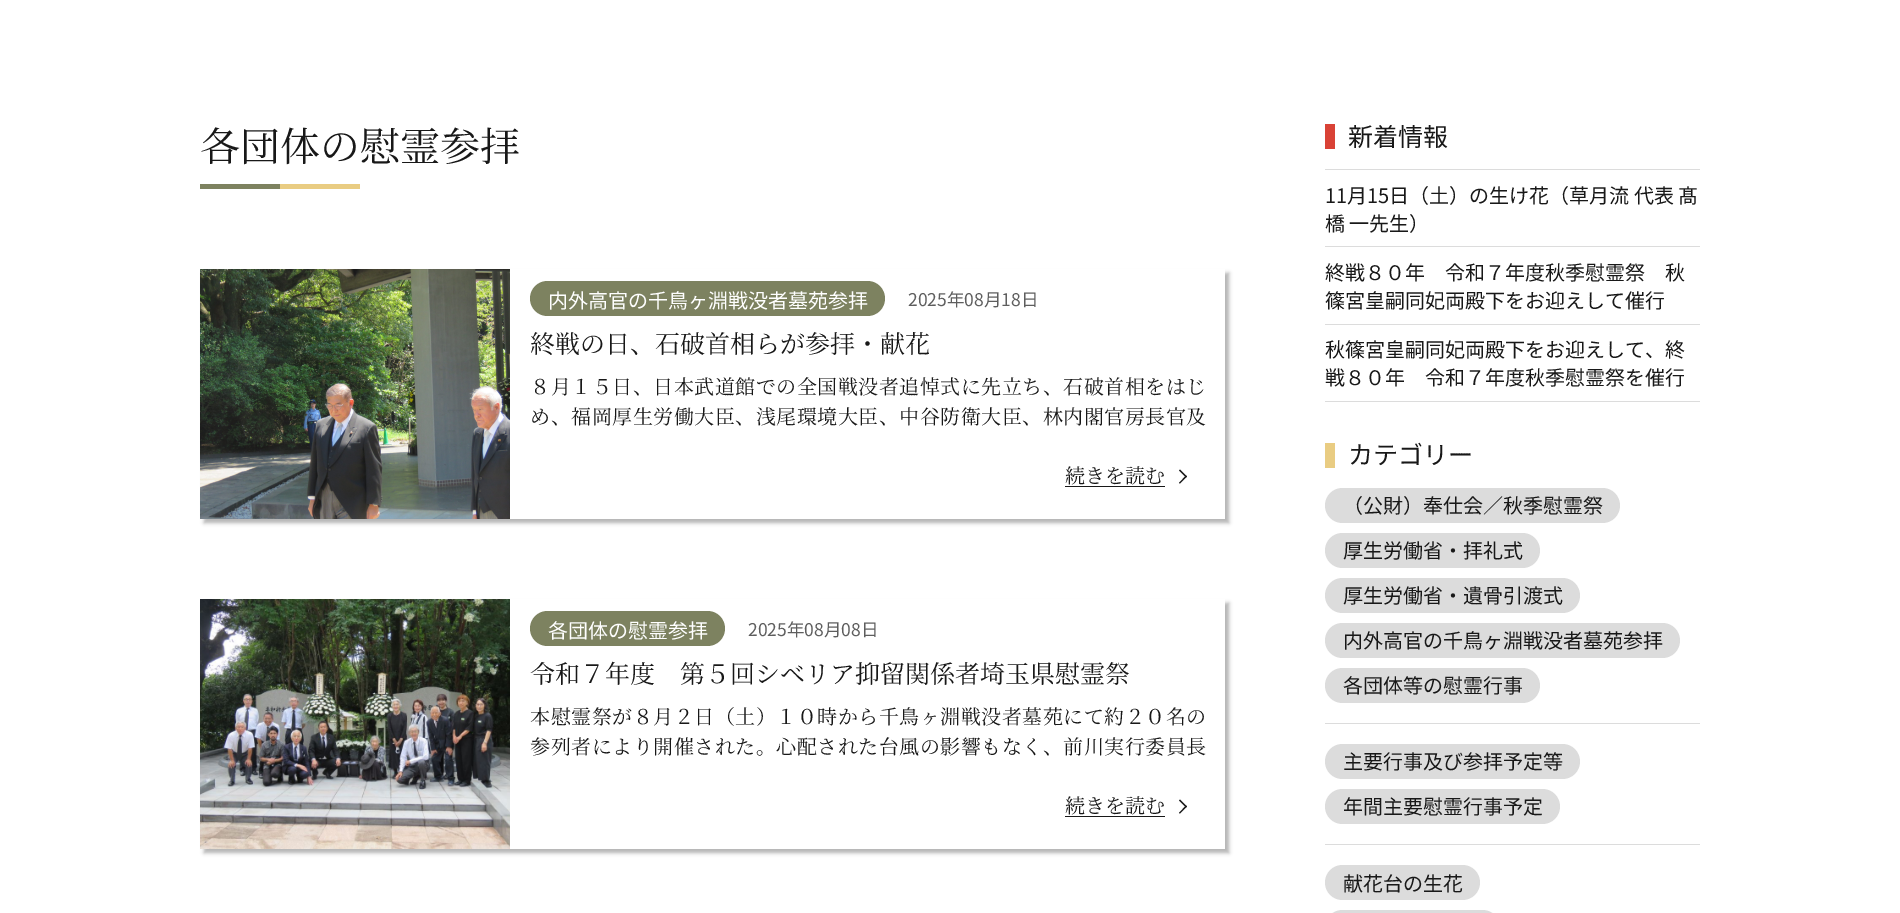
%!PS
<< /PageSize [1900 913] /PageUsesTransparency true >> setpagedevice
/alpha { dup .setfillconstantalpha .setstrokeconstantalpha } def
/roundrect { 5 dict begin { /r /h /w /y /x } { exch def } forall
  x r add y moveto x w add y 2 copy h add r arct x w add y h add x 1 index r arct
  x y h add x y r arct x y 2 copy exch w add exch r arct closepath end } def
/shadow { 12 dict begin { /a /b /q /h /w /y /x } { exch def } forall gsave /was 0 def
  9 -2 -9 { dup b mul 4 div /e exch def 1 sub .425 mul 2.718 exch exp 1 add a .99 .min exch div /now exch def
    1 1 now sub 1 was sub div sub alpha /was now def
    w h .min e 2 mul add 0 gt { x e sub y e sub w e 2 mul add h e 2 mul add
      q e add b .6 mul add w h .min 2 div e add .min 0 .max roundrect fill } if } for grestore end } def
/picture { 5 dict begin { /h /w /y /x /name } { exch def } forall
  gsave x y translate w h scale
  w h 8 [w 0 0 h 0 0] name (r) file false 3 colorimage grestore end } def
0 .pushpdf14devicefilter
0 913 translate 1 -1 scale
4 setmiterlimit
1 setgray
0 0 1900 913 rectfill
/NotoSerifJP-Regular [40 0 0 -40 0 0] selectfont
0.094 setgray
200 161 moveto (各団体の慰霊参拝) show
0.49 0.51 0.376 setrgbcolor
200 184 80 5 rectfill
0.914 0.8 0.51 setrgbcolor
280 184 80 5 rectfill
gsave
newpath 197 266 moveto 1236 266 lineto 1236 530 lineto 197 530 lineto closepath 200 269 moveto 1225 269 lineto 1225 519 lineto 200 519 lineto closepath eoclip newpath
0 setgray
204 273 1025 250 0 2 0.3 shadow
grestore
(img1.rgb) 200 269 310 250 picture
0.49 0.51 0.376 setrgbcolor
530 281 355 35 17.5 roundrect fill
/NotoSansJP-Regular [20 0 0 -20 0 0] selectfont
1 setgray
548 308 moveto (内外高官の千鳥ヶ淵戦没者墓苑参拝) show
/NotoSansJP-Regular [17.5 0 0 -17.5 0 0] selectfont
0.369 setgray
908 306 moveto (2025年08月18日) show
/NotoSerifJP-Regular [25 0 0 -25 0 0] selectfont
0.094 setgray
530 353 moveto (終戦の日、石破首相らが参拝・献花) show
/NotoSerifJP-Regular [20 0 0 -20 0 0] selectfont
530 394 moveto 0.5 0 (８月１５日、日本武道館での全国戦没者追悼式に先立ち、石破首相をはじ) ashow
530 424 moveto 0.5 0 (め、福岡厚生労働大臣、浅尾環境大臣、中谷防衛大臣、林内閣官房長官及) ashow
1065 483 moveto (続きを読む) show
1065 486 100 1 rectfill
newpath 1180 469.5 moveto 1187 476.5 lineto 1186 477.5 lineto 1179 470.5 lineto closepath fill
newpath 1186 475.5 moveto 1187 476.5 lineto 1180 483.5 lineto 1179 483 lineto closepath fill
gsave
newpath 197 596 moveto 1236 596 lineto 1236 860 lineto 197 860 lineto closepath 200 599 moveto 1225 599 lineto 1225 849 lineto 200 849 lineto closepath eoclip newpath
0 setgray
204 603 1025 250 0 2 0.3 shadow
grestore
(img2.rgb) 200 599 310 250 picture
0.49 0.51 0.376 setrgbcolor
530 611 195 35 17.5 roundrect fill
/NotoSansJP-Regular [20 0 0 -20 0 0] selectfont
1 setgray
548 638 moveto (各団体の慰霊参拝) show
/NotoSansJP-Regular [17.5 0 0 -17.5 0 0] selectfont
0.369 setgray
748 636 moveto (2025年08月08日) show
/NotoSerifJP-Regular [25 0 0 -25 0 0] selectfont
0.094 setgray
530 683 moveto (令和７年度　第５回シベリア抑留関係者埼玉県慰霊祭) show
/NotoSerifJP-Regular [20 0 0 -20 0 0] selectfont
530 724 moveto 0.5 0 (本慰霊祭が８月２日（土）１０時から千鳥ヶ淵戦没者墓苑にて約２０名の) ashow
530 754 moveto 0.5 0 (参列者により開催された。心配された台風の影響もなく、前川実行委員長) ashow
1065 813 moveto (続きを読む) show
1065 816 100 1 rectfill
newpath 1180 799.5 moveto 1187 806.5 lineto 1186 807.5 lineto 1179 800.5 lineto closepath fill
newpath 1186 805.5 moveto 1187 806.5 lineto 1180 813.5 lineto 1179 813 lineto closepath fill
0.851 0.259 0.212 setrgbcolor
1325 124 10 25 rectfill
/NotoSansJP-Regular [25 0 0 -25 0 0] selectfont
0.094 setgray
1348 146 moveto (新着情報) show
0.863 setgray
1325 169 375 1 rectfill
1325 246 375 1 rectfill
/NotoSansJP-Regular [20 0 0 -20 0 0] selectfont
0.094 setgray
1325 203 moveto (11月15日（土）の生け花（草月流 代表 髙) show
1325 231 moveto (橋 一先生）) show
0.863 setgray
1325 324 375 1 rectfill
0.094 setgray
1325 280 moveto (終戦８０年　令和７年度秋季慰霊祭　秋) show
1325 308 moveto (篠宮皇嗣同妃両殿下をお迎えして催行) show
0.863 setgray
1325 401 375 1 rectfill
0.094 setgray
1325 357 moveto (秋篠宮皇嗣同妃両殿下をお迎えして、終) show
1325 385 moveto (戦８０年　令和７年度秋季慰霊祭を催行) show
0.914 0.8 0.51 setrgbcolor
1325 443 10 25 rectfill
/NotoSansJP-Regular [25 0 0 -25 0 0] selectfont
0.094 setgray
1348 464 moveto (カテゴリー) show
0.863 setgray
1325 488 295 35 17.5 roundrect fill
/NotoSansJP-Regular [20 0 0 -20 0 0] selectfont
0.094 setgray
1343 513 moveto (（公財）奉仕会／秋季慰霊祭) show
0.863 setgray
1325 533 215 35 17.5 roundrect fill
0.094 setgray
1343 558 moveto (厚生労働省・拝礼式) show
0.863 setgray
1325 578 255 35 17.5 roundrect fill
0.094 setgray
1343 603 moveto (厚生労働省・遺骨引渡式) show
0.863 setgray
1325 623 355 35 17.5 roundrect fill
0.094 setgray
1343 648 moveto (内外高官の千鳥ヶ淵戦没者墓苑参拝) show
0.863 setgray
1325 723 375 1 rectfill
1325 668 215 35 17.5 roundrect fill
0.094 setgray
1343 693 moveto (各団体等の慰霊行事) show
0.863 setgray
1325 744 255 35 17.5 roundrect fill
0.094 setgray
1343 769 moveto (主要行事及び参拝予定等) show
0.863 setgray
1325 844 375 1 rectfill
1325 789 235 35 17.5 roundrect fill
0.094 setgray
1343 814 moveto (年間主要慰霊行事予定) show
0.863 setgray
1325 865 155 35 17.5 roundrect fill
0.094 setgray
1343 891 moveto (献花台の生花) show
0.863 setgray
1325 910 175 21 17.5 roundrect fill
.poppdf14devicefilter showpage
